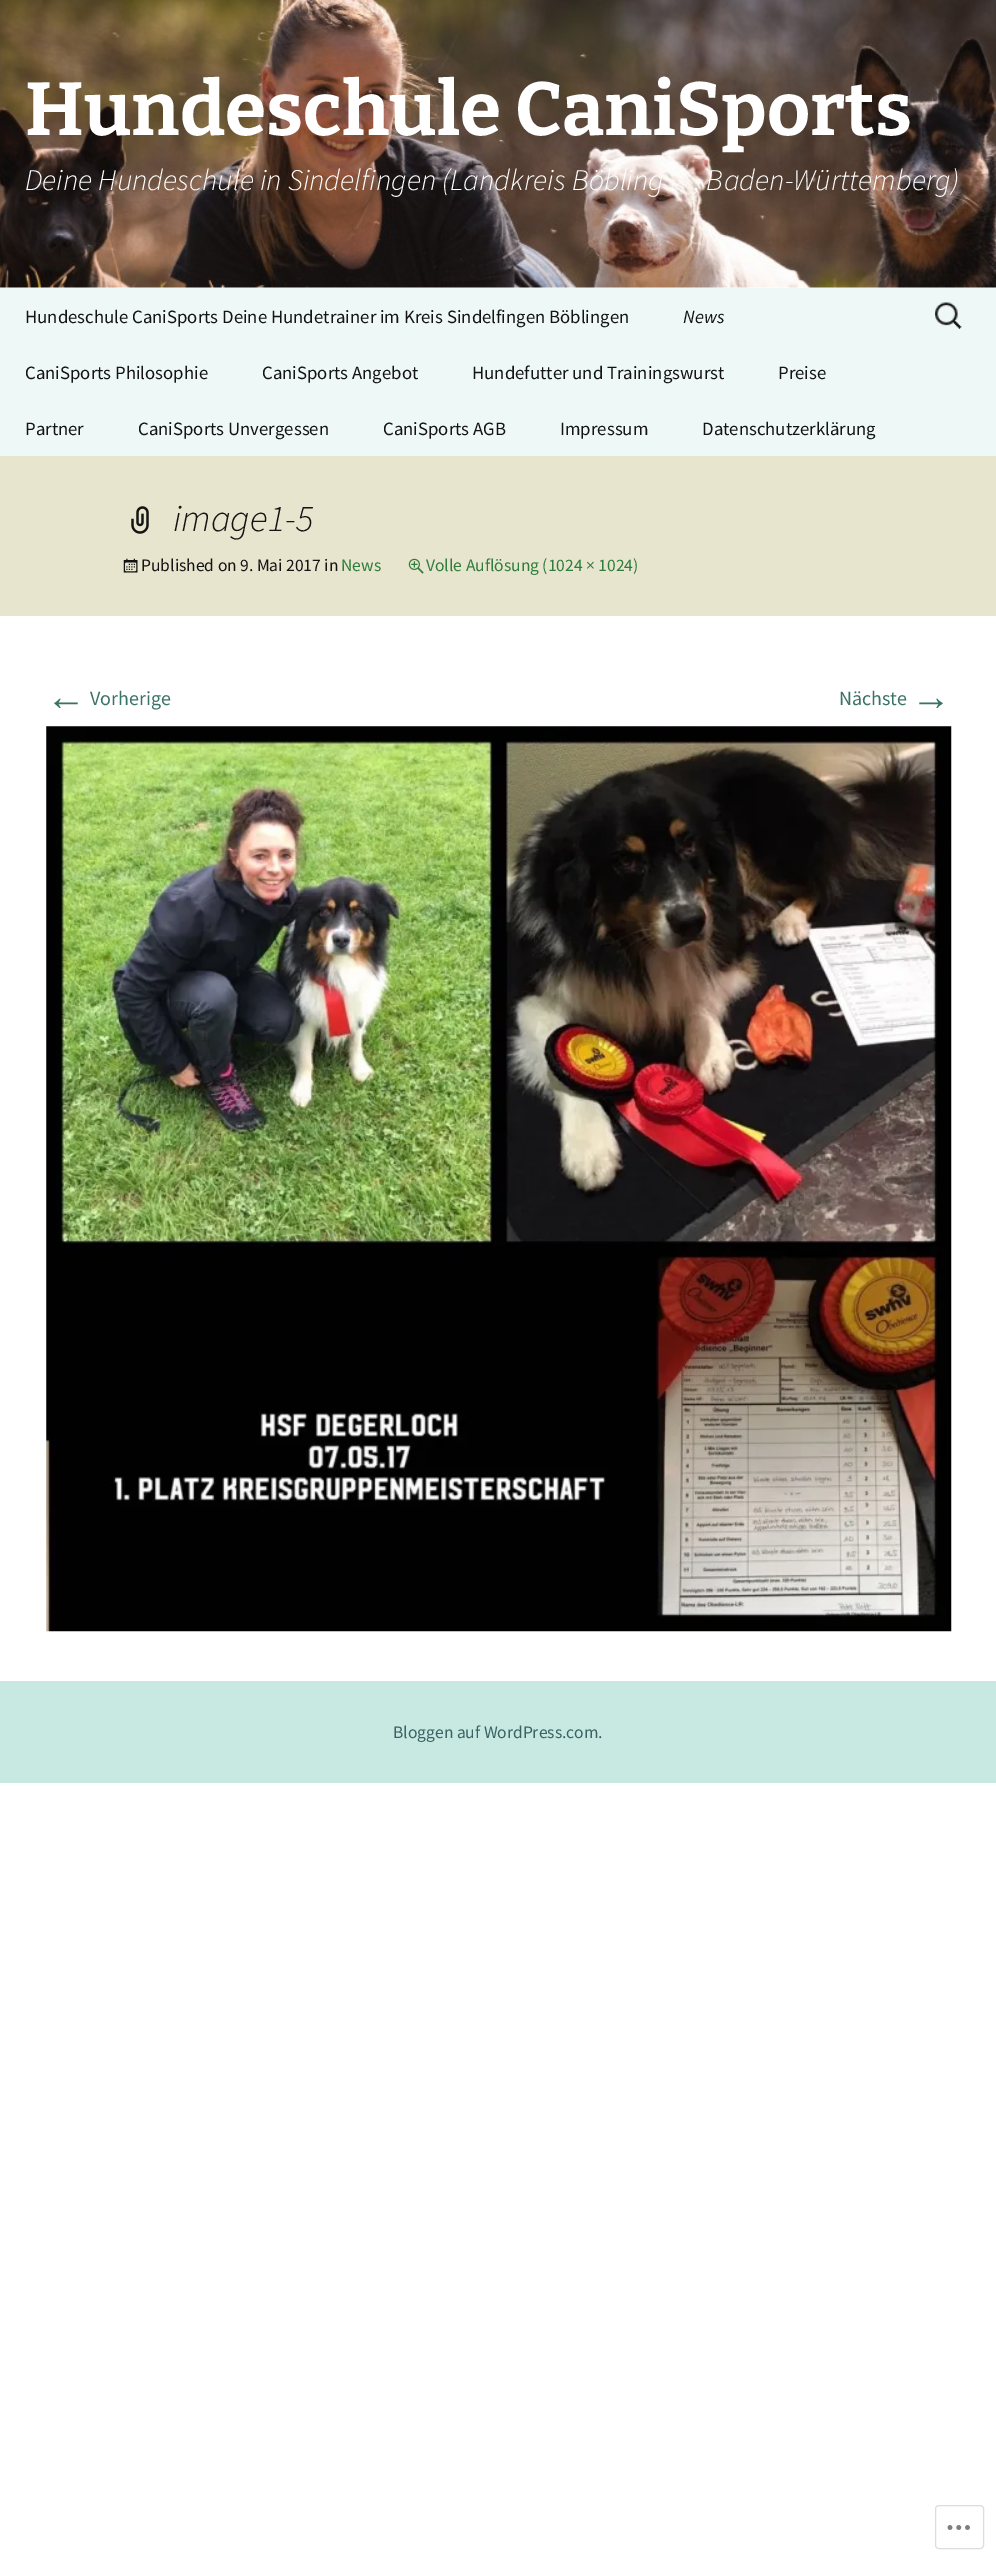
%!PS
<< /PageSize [996 2561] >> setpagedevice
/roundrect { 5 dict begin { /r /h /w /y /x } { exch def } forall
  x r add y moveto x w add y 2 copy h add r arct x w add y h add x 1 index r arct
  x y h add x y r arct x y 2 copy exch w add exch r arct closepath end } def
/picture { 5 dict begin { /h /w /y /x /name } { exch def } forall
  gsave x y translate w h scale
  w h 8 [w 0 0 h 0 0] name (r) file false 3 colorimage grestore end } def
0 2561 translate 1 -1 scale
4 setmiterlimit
1 setgray
0 0 996 2561 rectfill
(img1.rgb) 0 0 996 288 picture
/Bitter-Bold [75 0 0 -75 0 0] selectfont
25 135 moveto (Hundeschule CaniSports) show
/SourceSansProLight-LightItalic [30 0 0 -30 0 0] selectfont
25 190 moveto (Deine Hundeschule in Sindelfingen \(Landkreis Böbling) show
694 190 moveto (, Baden-Württemberg\)) show
0.933 0.973 0.965 setrgbcolor
0 288 996 168 rectfill
/SourceSansPro-Regular [18.75 0 0 -18.75 0 0] selectfont
0.078 setgray
25 323 moveto (Hundeschule CaniSports Deine Hundetrainer im Kreis Sindelfingen Böblingen) show
/SourceSansPro-Italic [18.75 0 0 -18.75 0 0] selectfont
683 323 moveto (News) show
/SourceSansPro-Regular [18.75 0 0 -18.75 0 0] selectfont
25 379 moveto (CaniSports Philosophie) show
262 379 moveto (CaniSports Angebot) show
472 379 moveto (Hundefutter und Trainingswurst) show
778 379 moveto (Preise) show
25 435 moveto (Partner) show
138 435 moveto (CaniSports Unvergessen) show
383 435 moveto (CaniSports AGB) show
560 435 moveto (Impressum) show
702 435 moveto (Datenschutzerklärung) show
(img2.rgb) 935 302 27 27 picture
0.91 0.898 0.808 setrgbcolor
0 456 996 160 rectfill
(img3.rgb) 131 506 18 28 picture
/SourceSansProLight-LightItalic [37.5 0 0 -37.5 0 0] selectfont
0.078 setgray
173 531 moveto (image1-5) show
(img4.rgb) 123 558 15 15 picture
/SourceSansPro-Regular [17.5 0 0 -17.5 0 0] selectfont
141 571 moveto (Published on 9. Mai 2017 in) show
0.184 0.49 0.239 setrgbcolor
341 571 moveto (News) show
(img5.rgb) 408 558 16 16 picture
426 571 moveto (Volle Auflösung \(1024 × 1024\)) show
/LiberationSans-Regular [40 0 0 -40 0 0] selectfont
0.227 0.451 0.4 setrgbcolor
46 710 moveto (←) show
/SourceSansPro-Regular [20 0 0 -20 0 0] selectfont
90 705 moveto (Vorherige) show
839 705 moveto (Nächste) show
/LiberationSans-Regular [40 0 0 -40 0 0] selectfont
911 710 moveto (→) show
(img6.rgb) 46 726 906 906 picture
0.784 0.91 0.886 setrgbcolor
0 1681 996 102 rectfill
/SourceSansPro-Regular [17.5 0 0 -17.5 0 0] selectfont
0.227 0.388 0.388 setrgbcolor
393 1738 moveto (Bloggen auf WordPress.com.) show
0.867 0.867 0.875 setrgbcolor
935.5 2505.5 48 43 3.5 roundrect stroke
(img7.rgb) 947 2525 23 5 picture
showpage
